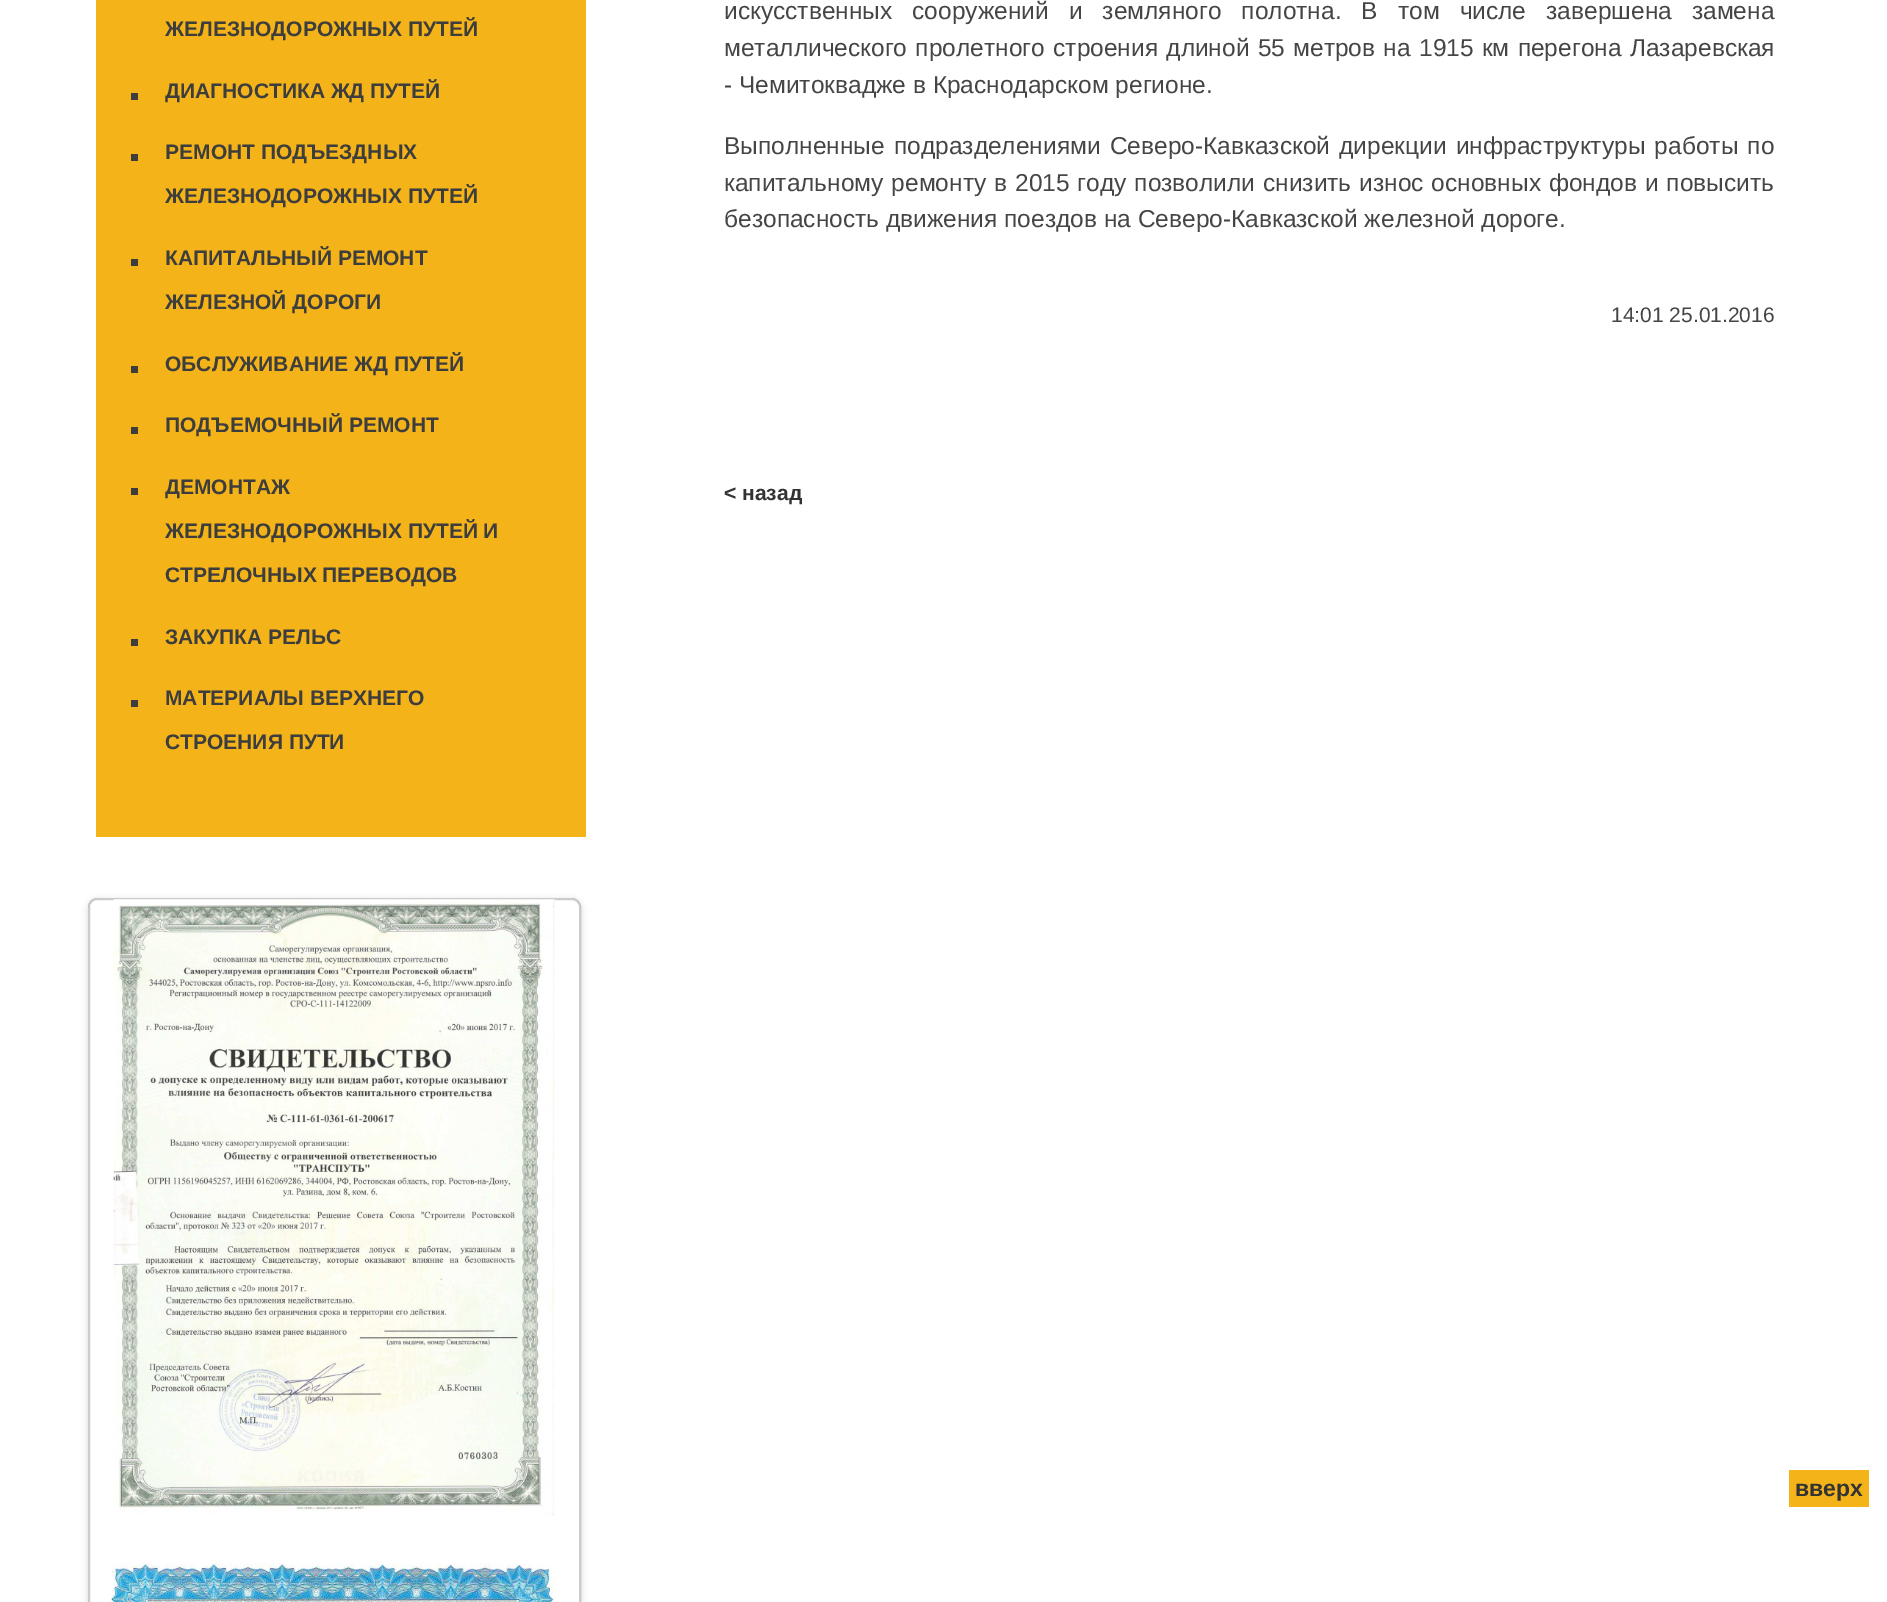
%!PS
<< /PageSize [1887 1602] /PageUsesTransparency true >> setpagedevice
/alpha { dup .setfillconstantalpha .setstrokeconstantalpha } def
/roundrect { 5 dict begin { /r /h /w /y /x } { exch def } forall
  x r add y moveto x w add y 2 copy h add r arct x w add y h add x 1 index r arct
  x y h add x y r arct x y 2 copy exch w add exch r arct closepath end } def
/shadow { 12 dict begin { /a /b /q /h /w /y /x } { exch def } forall gsave /was 0 def
  9 -2 -9 { dup b mul 4 div /e exch def 1 sub .425 mul 2.718 exch exp 1 add a .99 .min exch div /now exch def
    1 1 now sub 1 was sub div sub alpha /was now def
    w h .min e 2 mul add 0 gt { x e sub y e sub w e 2 mul add h e 2 mul add
      q e add b .6 mul add w h .min 2 div e add .min 0 .max roundrect fill } if } for grestore end } def
/picture { 5 dict begin { /h /w /y /x /name } { exch def } forall
  gsave x y translate w h scale
  w h 8 [w 0 0 h 0 0] name (r) file false 3 colorimage grestore end } def
0 .pushpdf14devicefilter
0 1602 translate 1 -1 scale
4 setmiterlimit
1 setgray
0 0 1887 1602 rectfill
0.957 0.706 0.098 setrgbcolor
96 0 490 837 rectfill
/Arimo-Bold [21 0 0 -21 0 0] selectfont
0.239 setgray
165 36 moveto (ЖЕЛЕЗНОДОРОЖНЫХ ПУТЕЙ) show
131 93 7 7 rectfill
165 98 moveto (ДИАГНОСТИКА ЖД ПУТЕЙ) show
131 154 7 7 rectfill
165 159 moveto (РЕМОНТ ПОДЪЕЗДНЫХ) show
165 203 moveto (ЖЕЛЕЗНОДОРОЖНЫХ ПУТЕЙ) show
131 259 7 7 rectfill
165 265 moveto (КАПИТАЛЬНЫЙ РЕМОНТ) show
165 309 moveto (ЖЕЛЕЗНОЙ ДОРОГИ) show
131 366 7 7 rectfill
165 371 moveto (ОБСЛУЖИВАНИЕ ЖД ПУТЕЙ) show
131 427 7 7 rectfill
165 432 moveto (ПОДЪЕМОЧНЫЙ РЕМОНТ) show
131 488 7 7 rectfill
165 494 moveto (ДЕМОНТАЖ) show
165 538 moveto (ЖЕЛЕЗНОДОРОЖНЫХ ПУТЕЙ И) show
165 582 moveto (СТРЕЛОЧНЫХ ПЕРЕВОДОВ) show
131 639 7 7 rectfill
165 644 moveto (ЗАКУПКА РЕЛЬС) show
131 700 7 7 rectfill
165 705 moveto (МАТЕРИАЛЫ ВЕРХНЕГО) show
165 749 moveto (СТРОЕНИЯ ПУТИ) show
gsave
newpath 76 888 moveto 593 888 lineto 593 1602 lineto 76 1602 lineto closepath 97 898 moveto 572 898 lineto 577 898 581 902 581 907 curveto 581 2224 lineto 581 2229 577 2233 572 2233 curveto 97 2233 lineto 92 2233 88 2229 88 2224 curveto 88 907 lineto 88 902 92 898 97 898 curveto closepath eoclip newpath
0 setgray
88 900 493 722 9 3.5 0.15 shadow
grestore
0.2 alpha
0 setgray
2 setlinewidth
89 899 491 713 8 roundrect stroke
1 alpha
(img1.rgb) 113 899 442 617 picture
(img2.rgb) 110 1563 445 39 picture
/Arimo-Regular [24.5 0 0 -24.5 0 0] selectfont
0.271 0.271 0.275 setrgbcolor
724 19 moveto 13.25 0 32 (искусственных сооружений и земляного полотна. В том числе завершена замена) widthshow
724 56 moveto 1.5 0 32 (металлического пролетного строения длиной 55 метров на 1915 км перегона Лазаревская) widthshow
724 93 moveto (- Чемитоквадже в Краснодарском регионе.) show
724 154 moveto 2.5 0 32 (Выполненные подразделениями Северо-Кавказской дирекции инфраструктуры работы по) widthshow
724 191 moveto 1.1 0 32 (капитальному ремонту в 2015 году позволили снизить износ основных фондов и повысить) widthshow
724 227 moveto (безопасность движения поездов на Северо-Кавказской железной дороге.) show
/Arimo-Regular [21 0 0 -21 0 0] selectfont
1611 322 moveto (14:01 25.01.2016) show
/Arimo-Bold [21 0 0 -21 0 0] selectfont
0.2 setgray
724 500 moveto (< назад) show
0.957 0.706 0.098 setrgbcolor
1789 1470 80 37 rectfill
/Arimo-Bold [23 0 0 -23 0 0] selectfont
0.2 setgray
1795 1496 moveto (вверх) show
.poppdf14devicefilter showpage
